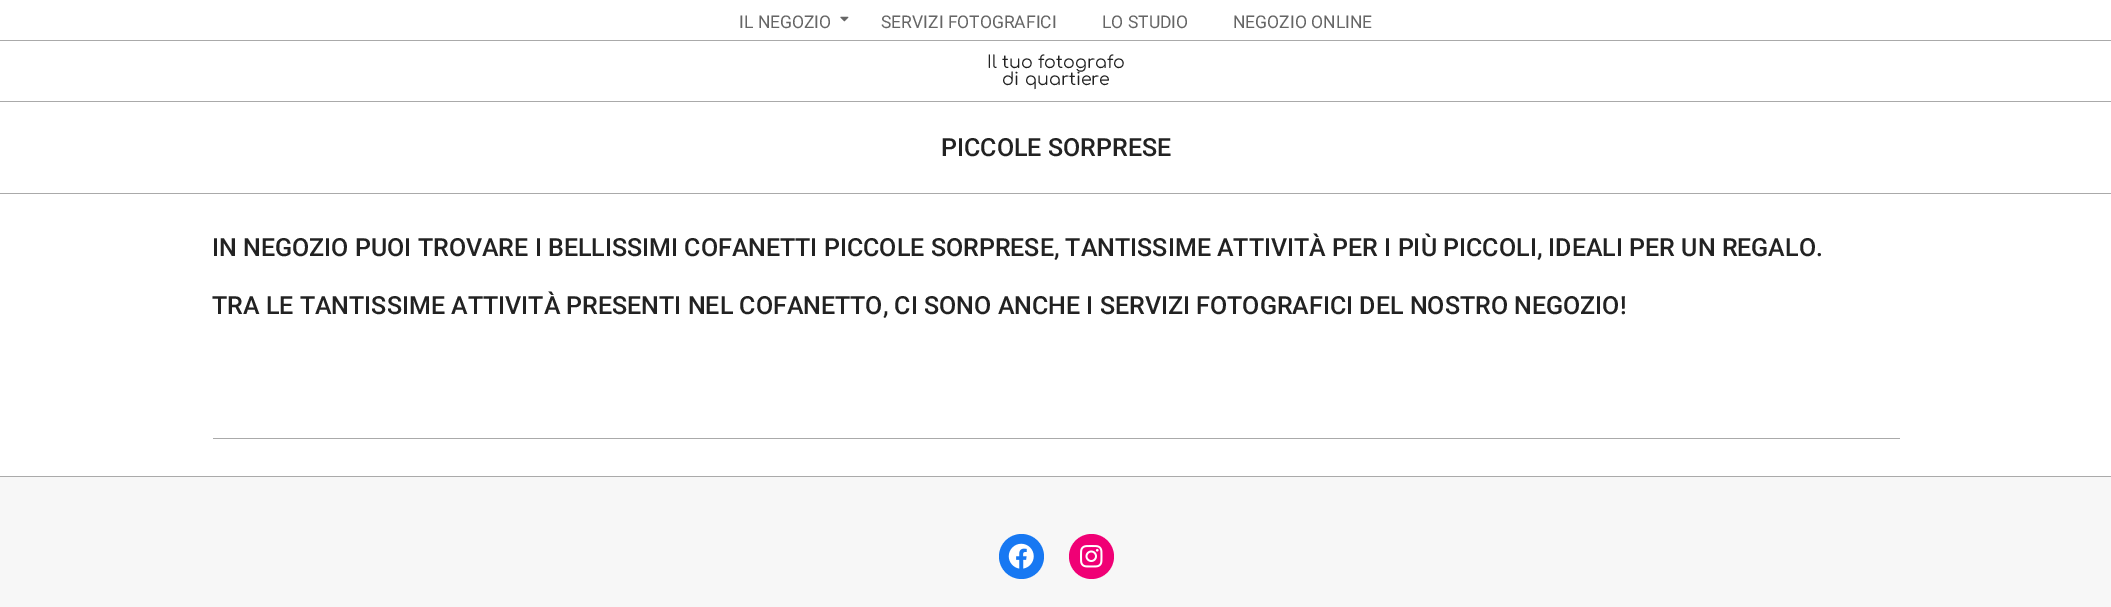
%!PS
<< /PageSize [2111 607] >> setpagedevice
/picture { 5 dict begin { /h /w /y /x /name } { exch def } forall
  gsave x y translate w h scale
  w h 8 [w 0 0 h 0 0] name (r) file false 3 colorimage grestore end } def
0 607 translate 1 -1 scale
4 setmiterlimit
1 setgray
0 0 2111 607 rectfill
0.667 setgray
0 40 2111 1 rectfill
/Roboto-Regular [17.5 0 0 -17.5 0 0] selectfont
0.4 setgray
739 28 moveto (IL NEGOZIO) show
(img1.rgb) 840 16 9 6 picture
881 28 moveto (SERVIZI FOTOGRAFICI) show
1102 28 moveto (LO STUDIO) show
1233 28 moveto (NEGOZIO ONLINE) show
0.667 setgray
0 101 2111 1 rectfill
/Comfortaa-Regular [17.5 0 0 -17.5 0 0] selectfont
0.133 setgray
987 68 moveto (Il tuo fotografo) show
1002 85 moveto (di quartiere) show
0.667 setgray
0 193 2111 1 rectfill
/Roboto-Medium [25 0 0 -25 0 0] selectfont
0.133 setgray
941 156 moveto (PICCOLE SORPRESE) show
0.667 setgray
213 438 1687 1 rectfill
0.133 setgray
212 256 moveto (IN NEGOZIO PUOI TROVARE I BELLISSIMI COFANETTI PICCOLE SORPRESE, TANTISSIME ATTIVITÀ PER I PIÙ PICCOLI, IDEALI PER UN REGALO.) show
212 314 moveto (TRA LE TANTISSIME ATTIVITÀ PRESENTI NEL COFANETTO, CI SONO ANCHE I SERVIZI FOTOGRAFICI DEL NOSTRO NEGOZIO!) show
0.969 setgray
0 477 2111 130 rectfill
0.667 setgray
0 476 2111 1 rectfill
0.09 0.471 0.949 setrgbcolor
newpath 1021.5 556.5 22.5 0 360 arc closepath fill
(img2.rgb) 1008 543 26 26 picture
0.941 0 0.459 setrgbcolor
newpath 1091.5 556.5 22.5 0 360 arc closepath fill
(img3.rgb) 1080 545 23 23 picture
showpage
